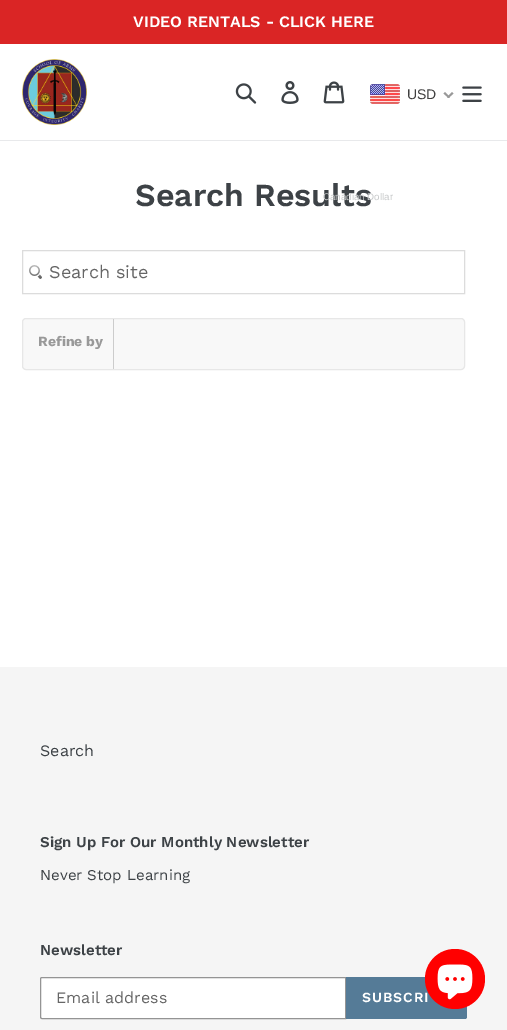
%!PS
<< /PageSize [507 1030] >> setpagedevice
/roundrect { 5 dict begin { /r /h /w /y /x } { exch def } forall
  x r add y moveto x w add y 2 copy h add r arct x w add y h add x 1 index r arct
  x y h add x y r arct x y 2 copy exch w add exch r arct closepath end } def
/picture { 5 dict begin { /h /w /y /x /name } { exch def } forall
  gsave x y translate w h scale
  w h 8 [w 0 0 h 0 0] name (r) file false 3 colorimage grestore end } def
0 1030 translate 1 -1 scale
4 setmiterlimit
1 setgray
0 0 507 1030 rectfill
0.855 0.145 0.145 setrgbcolor
0 0 507 44 rectfill
/WorkSans-SemiBold [16 0 0 -16 0 0] selectfont
1 setgray
133 27 moveto (VIDEO RENTALS - CLICK HERE) show
0.91 0.914 0.922 setrgbcolor
0 140 507 1 rectfill
(img1.rgb) 22 59 65 66 picture
(img2.rgb) 235 83 22 21 picture
(img3.rgb) 281 81 18 23 picture
(img4.rgb) 323 81 22 23 picture
(img5.rgb) 462 86 20 16 picture
(img6.rgb) 370 84 30 20 picture
/LiberationSans-Regular [14 0 0 -14 0 0] selectfont
0.251 0.247 0.247 setrgbcolor
407 99 moveto (USD) show
0.6 setgray
newpath 452 92 moveto 453.5 93.5 lineto 448.5 98 lineto 447 97 lineto closepath fill
newpath 445 92 moveto 450 97 lineto 448.5 98 lineto 443.5 93.5 lineto closepath fill
/WorkSans-SemiBold [32 0 0 -32 0 0] selectfont
0.239 0.259 0.275 setrgbcolor
135 206 moveto (Search Results) show
/LiberationSans-Regular [9.75 0 0 -9.75 0 0] selectfont
0.788 0.796 0.8 setrgbcolor
323 200 moveto (Canadian Dollar) show
(img7.rgb) 29 265 13 14 picture
0.863 setgray
22.5 250.5 442 43 rectstroke
/WorkSans-Regular [18 0 0 -18 0 0] selectfont
0.4 setgray
49 278 moveto (Search site) show
0.973 setgray
22.5 318.5 442 51 3.5 roundrect gsave fill grestore
0.906 setgray
stroke
0.8 setgray
113 319 1 50 rectfill
/WorkSans-Bold [14 0 0 -14 0 0] selectfont
0.6 setgray
38 346 moveto (Refine by) show
0.961 setgray
0 667 507 363 rectfill
/WorkSans-Regular [16 0 0 -16 0 0] selectfont
0.239 0.259 0.275 setrgbcolor
40 756 moveto (Search) show
/WorkSans-SemiBold [15 0 0 -15 0 0] selectfont
40 847 moveto (Sign Up For Our Monthly Newsletter) show
/WorkSans-Regular [15 0 0 -15 0 0] selectfont
40 880 moveto (Never Stop Learning) show
/WorkSans-SemiBold [15 0 0 -15 0 0] selectfont
40 955 moveto (Newsletter) show
1 setgray
newpath 42 977.5 moveto 345.5 977.5 lineto 345.5 1018.5 lineto 42 1018.5 lineto 41 1018.5 40.5 1018 40.5 1017 curveto 40.5 979 lineto 40.5 978 41 977.5 42 977.5 curveto closepath gsave fill grestore
0.58 setgray
stroke
/WorkSans-Regular [16 0 0 -16 0 0] selectfont
0.4 setgray
56 1003 moveto (Email address) show
0.333 0.482 0.592 setrgbcolor
newpath 346 977 moveto 465 977 lineto 466 977 467 978 467 979 curveto 467 1017 lineto 467 1018 466 1019 465 1019 curveto 346 1019 lineto closepath fill
/WorkSans-SemiBold [14 0 0 -14 0 0] selectfont
1 setgray
362 1002 moveto 1 0 (SUBSCRI) ashow
1 0 0 setrgbcolor
newpath 455 979 30 0 360 arc closepath fill
(img8.rgb) 437 964 36 36 picture
showpage
